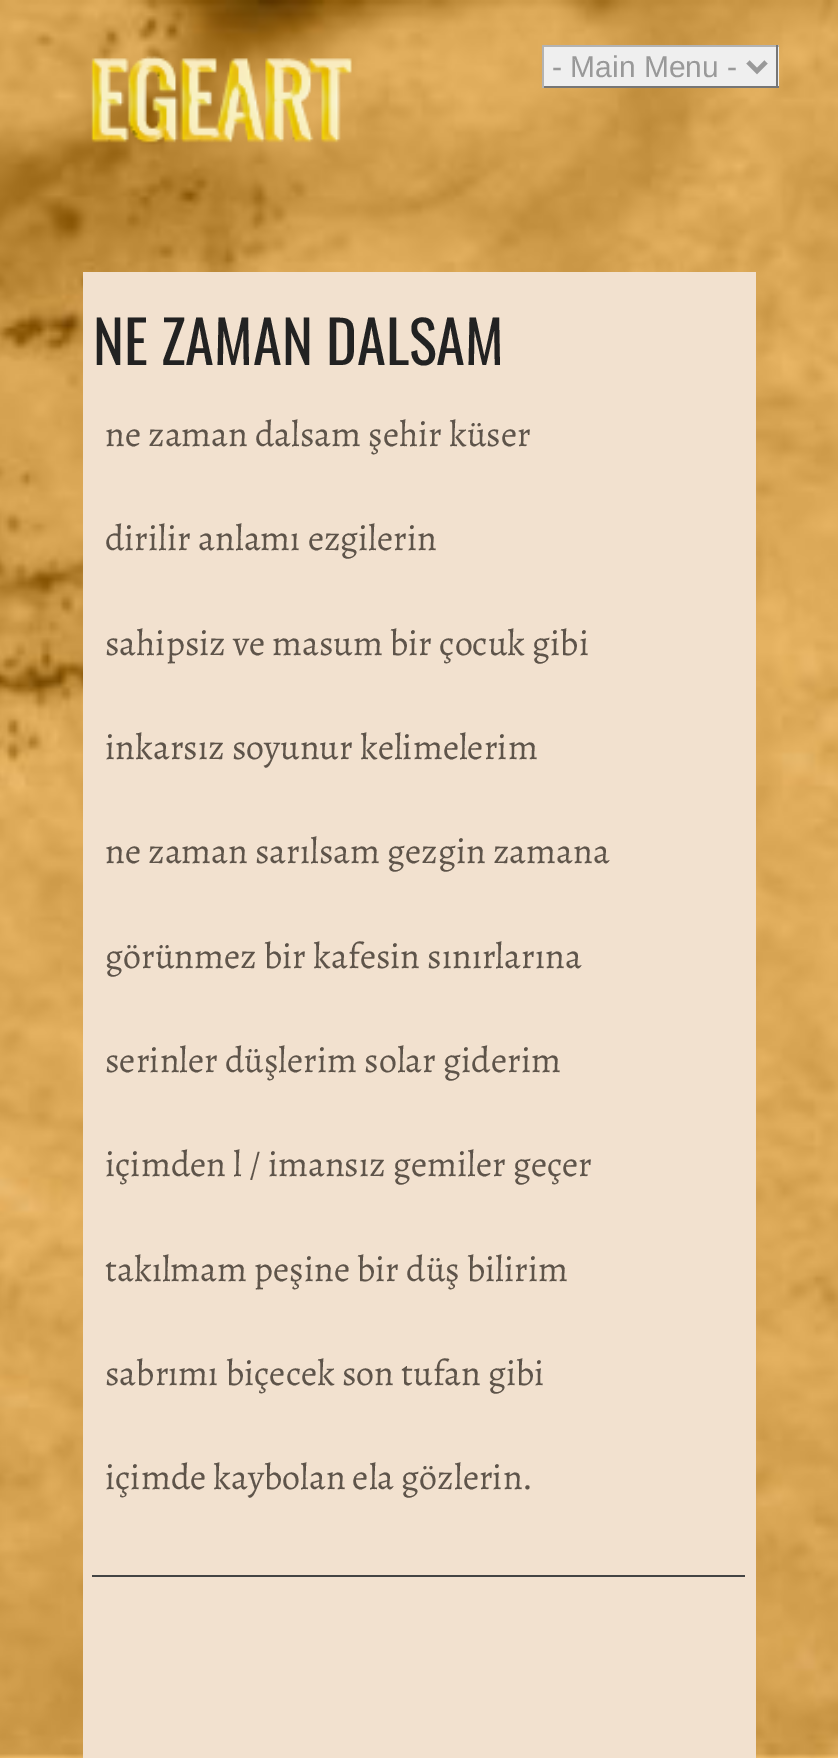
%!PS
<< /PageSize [838 1758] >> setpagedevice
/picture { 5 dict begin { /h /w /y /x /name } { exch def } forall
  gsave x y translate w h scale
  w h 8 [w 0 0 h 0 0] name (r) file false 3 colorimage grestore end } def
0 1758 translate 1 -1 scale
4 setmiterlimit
1 setgray
0 0 838 1758 rectfill
(img1.rgb) 0 0 838 1758 picture
(img2.rgb) 91 55 261 88 picture
0.937 setgray
544 47 235 39 rectfill
0.702 setgray
542 45 237 2 rectfill
0.463 setgray
776 45 2 43 rectfill
542 86 237 2 rectfill
0.702 setgray
542 45 2 43 rectfill
0.6 setgray
4.5 setlinewidth
newpath 748 62 moveto 757 71 lineto 766 62 lineto stroke
/LiberationSans-Regular [30 0 0 -30 0 0] selectfont
552 77 moveto (- Main Menu -) show
0.949 0.882 0.812 setrgbcolor
83 272 673 1486 rectfill
0.267 setgray
92 1575 653 2 rectfill
/Oswald-Regular [58.5 0 0 -58.5 0 0] selectfont
0.133 setgray
93 365 moveto (NE ZAMAN DALSAM) show
/Alegreya-Regular [36 0 0 -36 0 0] selectfont
0.369 0.329 0.29 setrgbcolor
105 446 moveto (ne zaman dalsam şehir küser) show
105 550 moveto (dirilir anlamı ezgilerin) show
105 655 moveto (sahipsiz ve masum bir çocuk gibi) show
105 759 moveto (inkarsız soyunur kelimelerim) show
105 863 moveto (ne zaman sarılsam gezgin zamana) show
105 968 moveto (görünmez bir kafesin sınırlarına) show
105 1072 moveto (serinler düşlerim solar giderim) show
105 1176 moveto (içimden l / imansız gemiler geçer) show
105 1281 moveto (takılmam peşine bir düş bilirim) show
105 1385 moveto (sabrımı biçecek son tufan gibi) show
105 1489 moveto (içimde kaybolan ela gözlerin.) show
showpage
